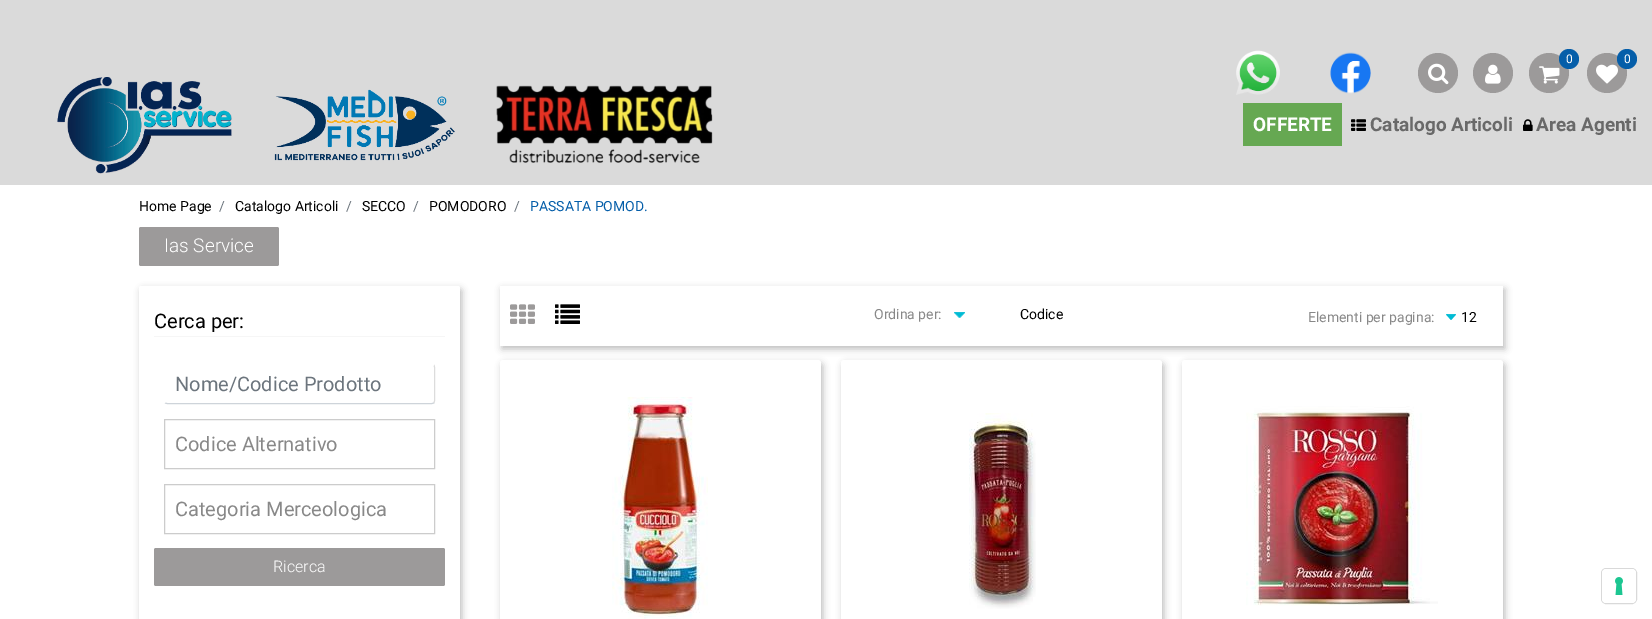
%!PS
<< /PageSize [1652 619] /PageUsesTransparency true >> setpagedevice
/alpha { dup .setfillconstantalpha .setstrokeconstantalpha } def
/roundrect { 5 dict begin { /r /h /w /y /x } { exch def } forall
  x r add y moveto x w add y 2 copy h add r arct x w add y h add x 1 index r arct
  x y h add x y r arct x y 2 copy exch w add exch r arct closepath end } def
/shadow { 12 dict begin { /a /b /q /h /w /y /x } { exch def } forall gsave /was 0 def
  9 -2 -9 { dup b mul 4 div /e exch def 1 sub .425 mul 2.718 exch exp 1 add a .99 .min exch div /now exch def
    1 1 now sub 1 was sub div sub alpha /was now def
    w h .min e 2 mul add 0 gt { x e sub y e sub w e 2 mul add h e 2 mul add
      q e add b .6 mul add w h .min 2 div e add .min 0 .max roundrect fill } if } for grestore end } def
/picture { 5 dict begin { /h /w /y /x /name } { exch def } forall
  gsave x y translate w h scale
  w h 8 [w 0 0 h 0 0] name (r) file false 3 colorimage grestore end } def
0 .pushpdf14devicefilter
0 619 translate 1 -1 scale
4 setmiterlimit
1 setgray
0 0 1652 619 rectfill
0.855 setgray
0 0 1652 185 rectfill
(img1.rgb) 1236 50 44 45 picture
(img2.rgb) 1330 52 41 42 picture
0.612 0.604 0.604 setrgbcolor
newpath 1438 73 20 0 360 arc closepath fill
(img3.rgb) 1428 63 21 22 picture
newpath 1493 73 20 0 360 arc closepath fill
(img4.rgb) 1485 64 16 20 picture
newpath 1549 73 20 0 360 arc closepath fill
(img5.rgb) 1539 66 21 18 picture
0.02 0.369 0.663 setrgbcolor
newpath 1569 59 10 0 360 arc closepath fill
/Roboto-Regular [12 0 0 -12 0 0] selectfont
1 setgray
1566 63 moveto (0) show
0.612 0.604 0.604 setrgbcolor
newpath 1607 73 20 0 360 arc closepath fill
(img6.rgb) 1596 64 22 20 picture
0.02 0.369 0.663 setrgbcolor
newpath 1627 59 10 0 360 arc closepath fill
1 setgray
1624 63 moveto (0) show
(img7.rgb) 57 77 175 97 picture
(img8.rgb) 274 89 181 72 picture
(img9.rgb) 496 85 217 78 picture
0.4 0.659 0.322 setrgbcolor
1243 103 99 43 rectfill
/Roboto-Bold [19 0 0 -19 0 0] selectfont
1 setgray
1253 131 moveto (OFFERTE) show
(img10.rgb) 1351 119 15 12 picture
0.412 setgray
1370 131 moveto (Catalogo Articoli) show
(img11.rgb) 1523 119 10 12 picture
1536 131 moveto (Area Agenti) show
/Roboto-Regular [14 0 0 -14 0 0] selectfont
0 setgray
139 211 moveto (Home Page) show
0.424 0.459 0.49 setrgbcolor
219 211 moveto (/) show
0 setgray
235 211 moveto (Catalogo Articoli) show
0.424 0.459 0.49 setrgbcolor
346 211 moveto (/) show
0 setgray
362 211 moveto (SECCO) show
0.424 0.459 0.49 setrgbcolor
413 211 moveto (/) show
0 setgray
429 211 moveto (POMODORO) show
0.424 0.459 0.49 setrgbcolor
514 211 moveto (/) show
0.02 0.369 0.663 setrgbcolor
530 211 moveto (PASSATA POMOD.) show
0.612 0.604 0.604 setrgbcolor
139 227 140 39 2 roundrect fill
/Roboto-Light [19 0 0 -19 0 0] selectfont
1 setgray
164 252 moveto (Ias Service) show
0 setgray
141 289 321 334 2 3.5 0.25 shadow
1 setgray
139 286 321 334 2 roundrect fill
0.965 setgray
154 336 291 1 rectfill
/Roboto-Regular [20 0 0 -20 0 0] selectfont
0 setgray
154 328 moveto (Cerca per:) show
0.863 setgray
newpath 434 365 moveto 434.5 367 lineto 434.5 401 lineto 434 403 lineto stroke
0.808 0.831 0.855 setrgbcolor
newpath 434 403 moveto 432 403.5 lineto 167 403.5 lineto 165 403 lineto stroke
1 setgray
newpath 165 403 moveto 163.5 401 164.5 382 164.5 378.5 curveto 164.5 372.5 lineto 164.5 371 163 364.5 167 364.5 curveto 433 365 lineto 434 365 lineto stroke
0.424 0.459 0.49 setrgbcolor
175 391 moveto (Nome/Codice Prodotto) show
0.8 setgray
164.5 419.5 270 49 rectstroke
0.533 setgray
175 451 moveto (Codice Alternativo) show
0.8 setgray
164.5 484.5 270 49 rectstroke
0.533 setgray
175 516 moveto (Categoria Merceologica) show
0.612 0.604 0.604 setrgbcolor
154 548 291 38 2 roundrect fill
/Roboto-Light [16 0 0 -16 0 0] selectfont
1 setgray
273 572 moveto (Ricerca) show
gsave
newpath 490 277 moveto 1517 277 lineto 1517 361 lineto 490 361 lineto closepath 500 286 moveto 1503 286 lineto 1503 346 lineto 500 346 lineto closepath eoclip newpath
0 setgray
502 289 1003 60 0 3.5 0.25 shadow
grestore
(img12.rgb) 510 304 25 20 picture
(img13.rgb) 555 304 25 20 picture
/Roboto-Regular [14 0 0 -14 0 0] selectfont
0.533 setgray
874 319 moveto (Ordina per:) show
(img14.rgb) 954 312 11 6 picture
0 setgray
1020 319 moveto (Codice) show
0.533 setgray
1308 322 moveto (Elementi per pagina:) show
(img15.rgb) 1446 314 10 6 picture
0 setgray
1461 322 moveto (12) show
502 363 321 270 3 3.5 0.25 shadow
1 setgray
500 360 321 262 3 roundrect fill
(img16.rgb) 612 397 96 222 picture
0 setgray
843 363 321 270 3 3.5 0.25 shadow
1 setgray
841 360 321 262 3 roundrect fill
(img17.rgb) 969 413 67 196 picture
0 setgray
1184 363 321 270 3 3.5 0.25 shadow
1 setgray
1182 360 321 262 3 roundrect fill
(img18.rgb) 1246 406 192 200 picture
0.851 setgray
1601.5 568.5 35 35 4.5 roundrect stroke
1 setgray
1602 569 34 34 4 roundrect fill
(img19.rgb) 1615 577 8 18 picture
.poppdf14devicefilter showpage
